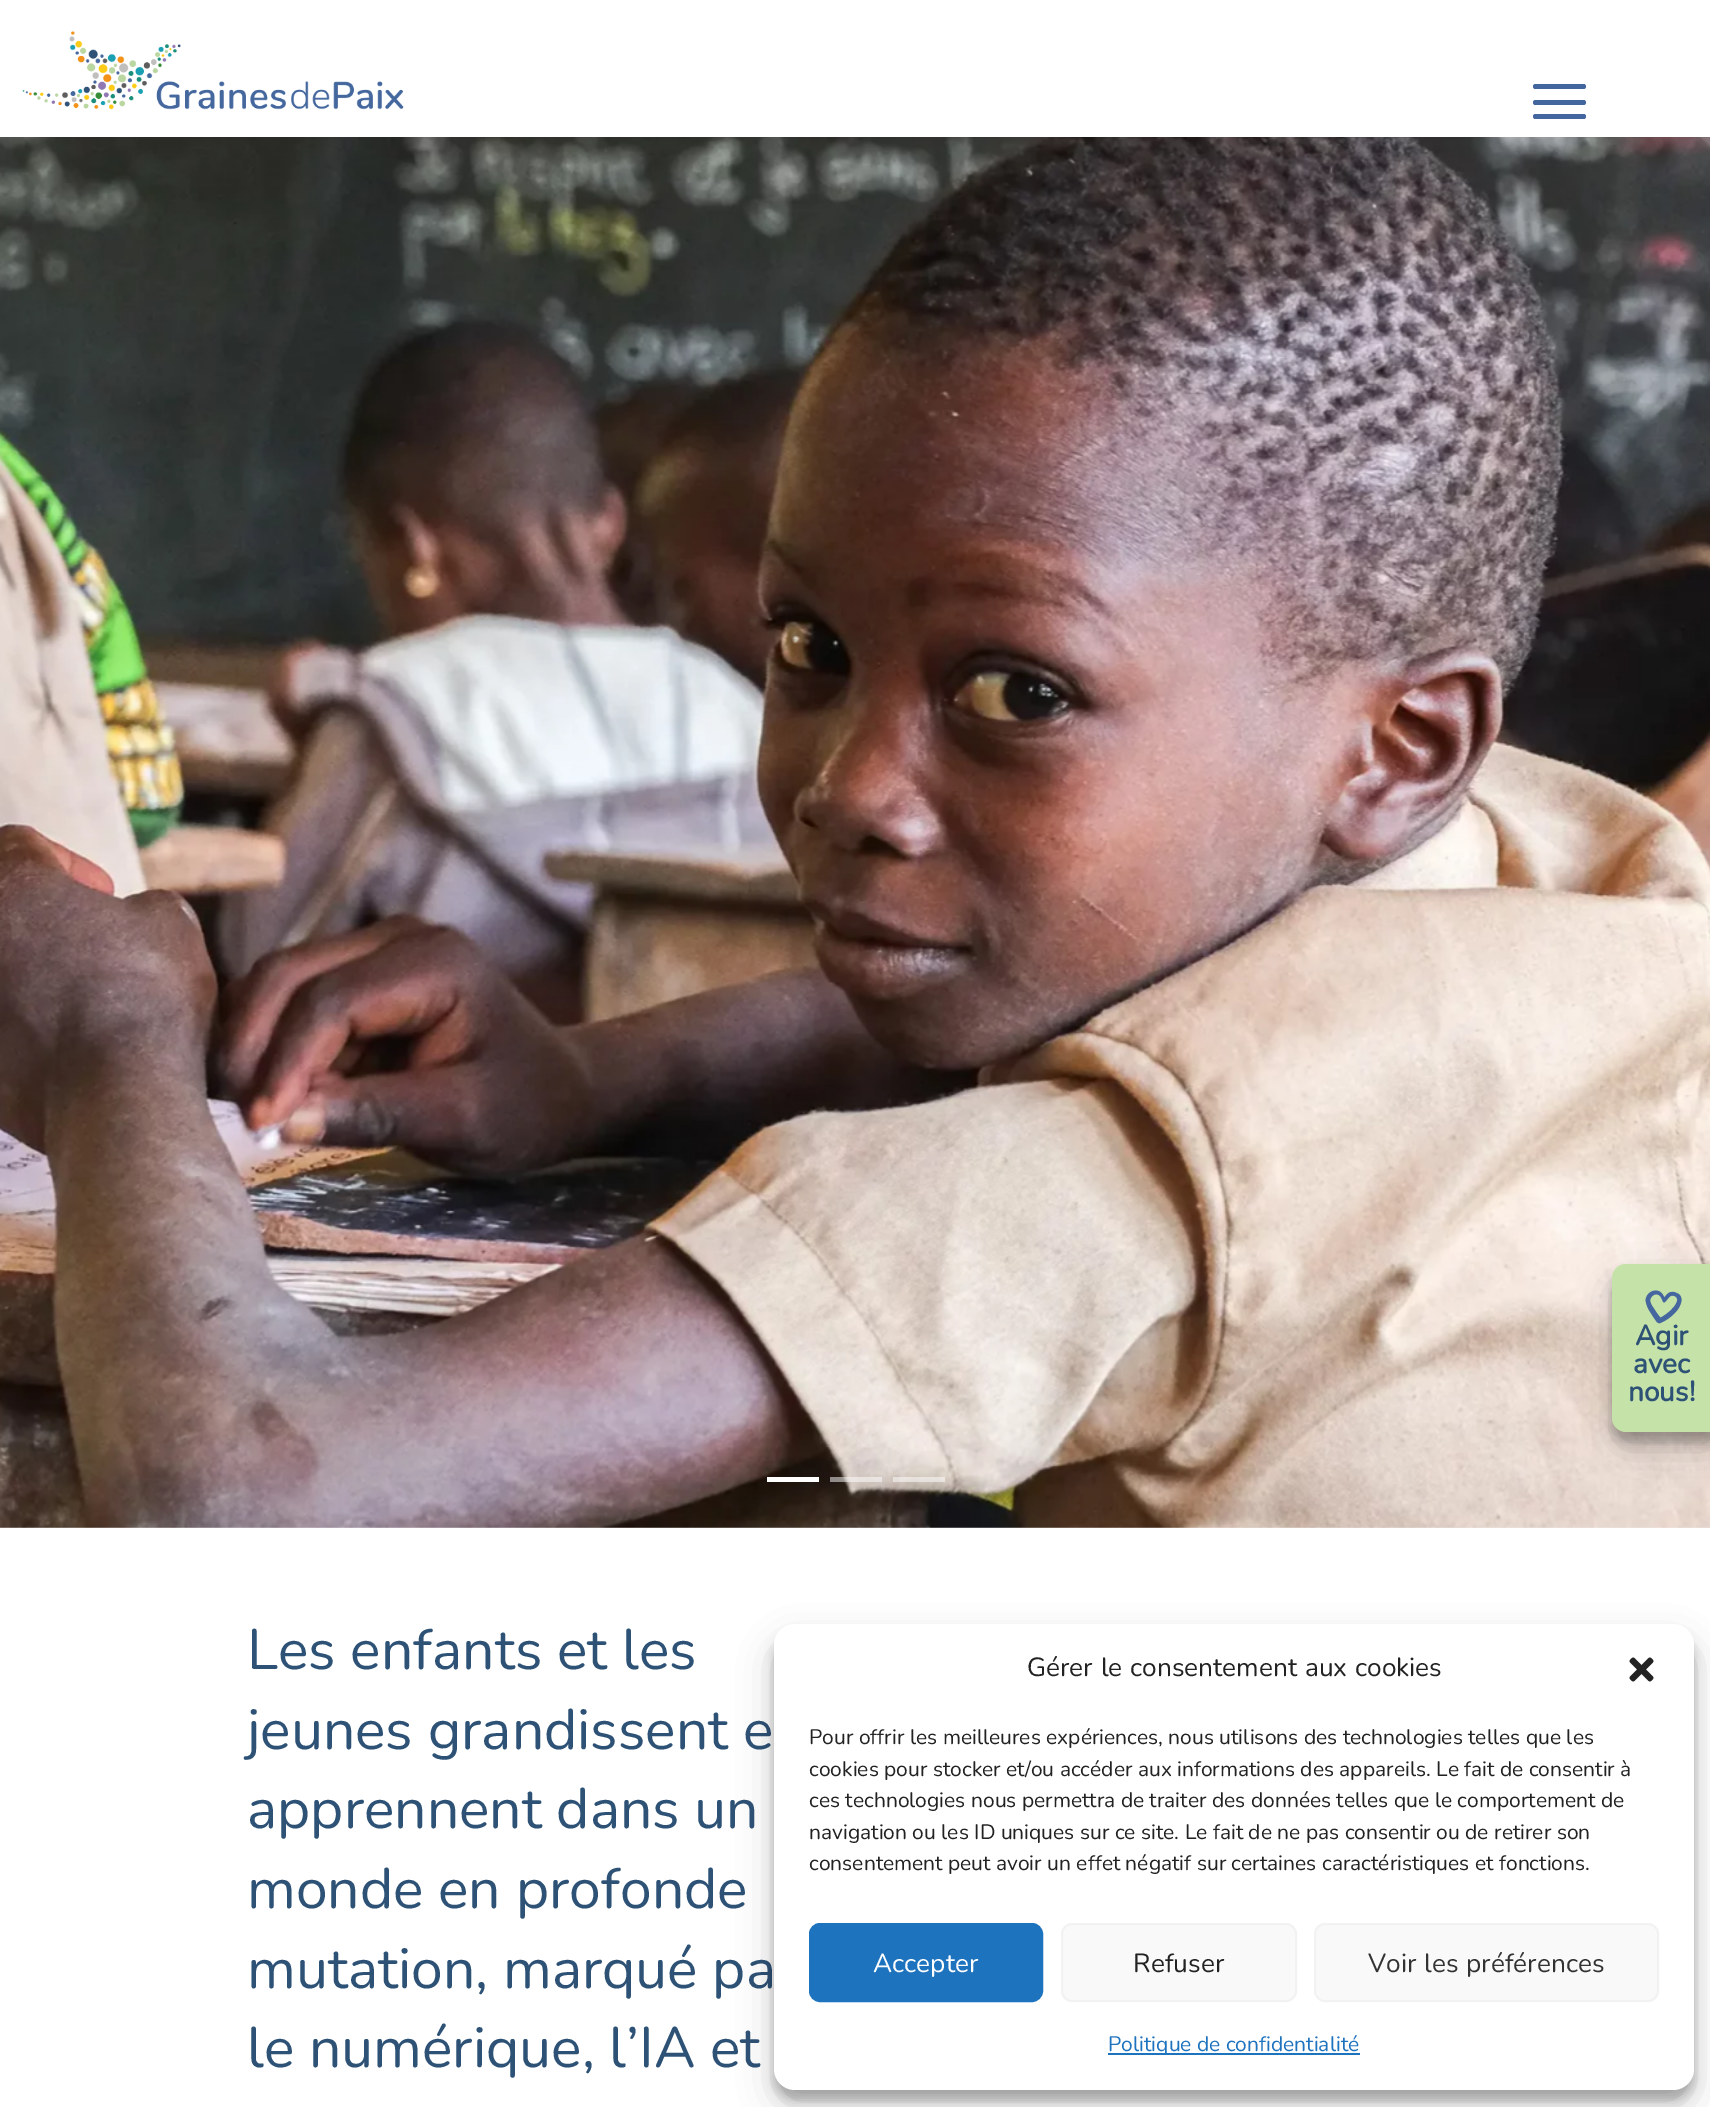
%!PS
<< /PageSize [1710 2107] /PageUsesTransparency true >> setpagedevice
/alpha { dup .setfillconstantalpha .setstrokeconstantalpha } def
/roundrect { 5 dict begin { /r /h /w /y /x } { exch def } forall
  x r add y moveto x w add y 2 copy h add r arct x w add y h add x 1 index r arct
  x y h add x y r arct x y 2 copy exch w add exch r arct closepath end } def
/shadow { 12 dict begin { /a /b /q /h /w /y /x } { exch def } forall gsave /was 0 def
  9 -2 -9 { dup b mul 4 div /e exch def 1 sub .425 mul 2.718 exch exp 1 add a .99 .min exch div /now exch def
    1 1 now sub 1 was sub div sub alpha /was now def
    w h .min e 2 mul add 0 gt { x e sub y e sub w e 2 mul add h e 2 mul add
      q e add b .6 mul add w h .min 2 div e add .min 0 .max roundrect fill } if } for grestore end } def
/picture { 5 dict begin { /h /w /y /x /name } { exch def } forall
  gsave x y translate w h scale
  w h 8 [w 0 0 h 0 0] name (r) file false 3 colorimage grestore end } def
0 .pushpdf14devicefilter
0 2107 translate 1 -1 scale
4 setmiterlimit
1 setgray
0 0 1710 2107 rectfill
(img1.rgb) 22 31 382 79 picture
0.267 0.4 0.62 setrgbcolor
1533 84 53 5 2.5 roundrect fill
1533 100 53 5 2.5 roundrect fill
1533 114 53 5 2.5 roundrect fill
(img3.rgb) 0 137 1710 1391 picture
0 setgray
1612 1274 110 168 14 5 0.23 shadow
1612 1281 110 168 14 17.5 0.19 shadow
0.773 0.886 0.659 setrgbcolor
newpath 1626 1264 moveto 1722 1264 lineto 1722 1432 lineto 1626 1432 lineto 1618.5 1432 1612 1425.5 1612 1418 curveto 1612 1278 lineto 1612 1270.5 1618.5 1264 1626 1264 curveto closepath fill
(img2.rgb) 1645 1290 37 34 picture
/Nunito-Bold [28 0 0 -28 0 0] selectfont
0.176 0.322 0.463 setrgbcolor
1635 1345 moveto (Agir) show
1633 1373 moveto (avec) show
1628 1401 moveto (nous!) show
1 setgray
767 1477 52 5 rectfill
0.5 alpha
830 1477 52 5 rectfill
893 1477 52 5 rectfill
/Nunito-Regular [57 0 0 -57 0 0] selectfont
1 alpha
0.176 0.322 0.463 setrgbcolor
247 1669 moveto (Les enfants et les) show
247 1749 moveto (jeunes grandissent e) show
247 1828 moveto (apprennent dans un) show
247 1908 moveto (monde en profonde) show
247 1988 moveto (mutation, marqué pa) show
247 2067 moveto (le numérique, l’IA et) show
0 setgray
774 1635 920 465 21 5 0.23 shadow
774 1642 920 465 21 17.5 0.19 shadow
1 setgray
774 1624 920 466 21 roundrect fill
/Nunito-Regular [26.25 0 0 -26.25 0 0] selectfont
0.133 setgray
1027 1676 moveto 1 0 32 (Gérer le consentement aux cookies) widthshow
(img4.rgb) 1629 1657 25 25 picture
/Nunito-Regular [21 0 0 -21 0 0] selectfont
809 1744 moveto (Pour offrir les meilleures expériences, nous utilisons des technologies telles que les) show
809 1776 moveto (cookies pour stocker et/ou accéder aux informations des appareils. Le fait de consentir à) show
809 1807 moveto (ces technologies nous permettra de traiter des données telles que le comportement de) show
809 1839 moveto (navigation ou les ID uniques sur ce site. Le fait de ne pas consentir ou de retirer son) show
809 1870 moveto (consentement peut avoir un effet négatif sur certaines caractéristiques et fonctions.) show
0.118 0.451 0.745 setrgbcolor
810 1924 232 77 10 roundrect gsave fill grestore
2 setlinewidth
stroke
/Nunito-Regular [26.25 0 0 -26.25 0 0] selectfont
1 setgray
873 1972 moveto (Accepter) show
0.976 setgray
1062 1924 234 77 10 roundrect gsave fill grestore
0.949 setgray
stroke
0.133 setgray
1133 1972 moveto (Refuser) show
0.976 setgray
1315 1924 343 77 10 roundrect gsave fill grestore
0.949 setgray
stroke
0.2 setgray
1368 1972 moveto 1 0 32 (Voir les préférences) widthshow
0.118 0.451 0.745 setrgbcolor
1108 2053 252 2 rectfill
/Nunito-Regular [21 0 0 -21 0 0] selectfont
1108 2051 moveto (Politique de confidentialité) show
.poppdf14devicefilter showpage
